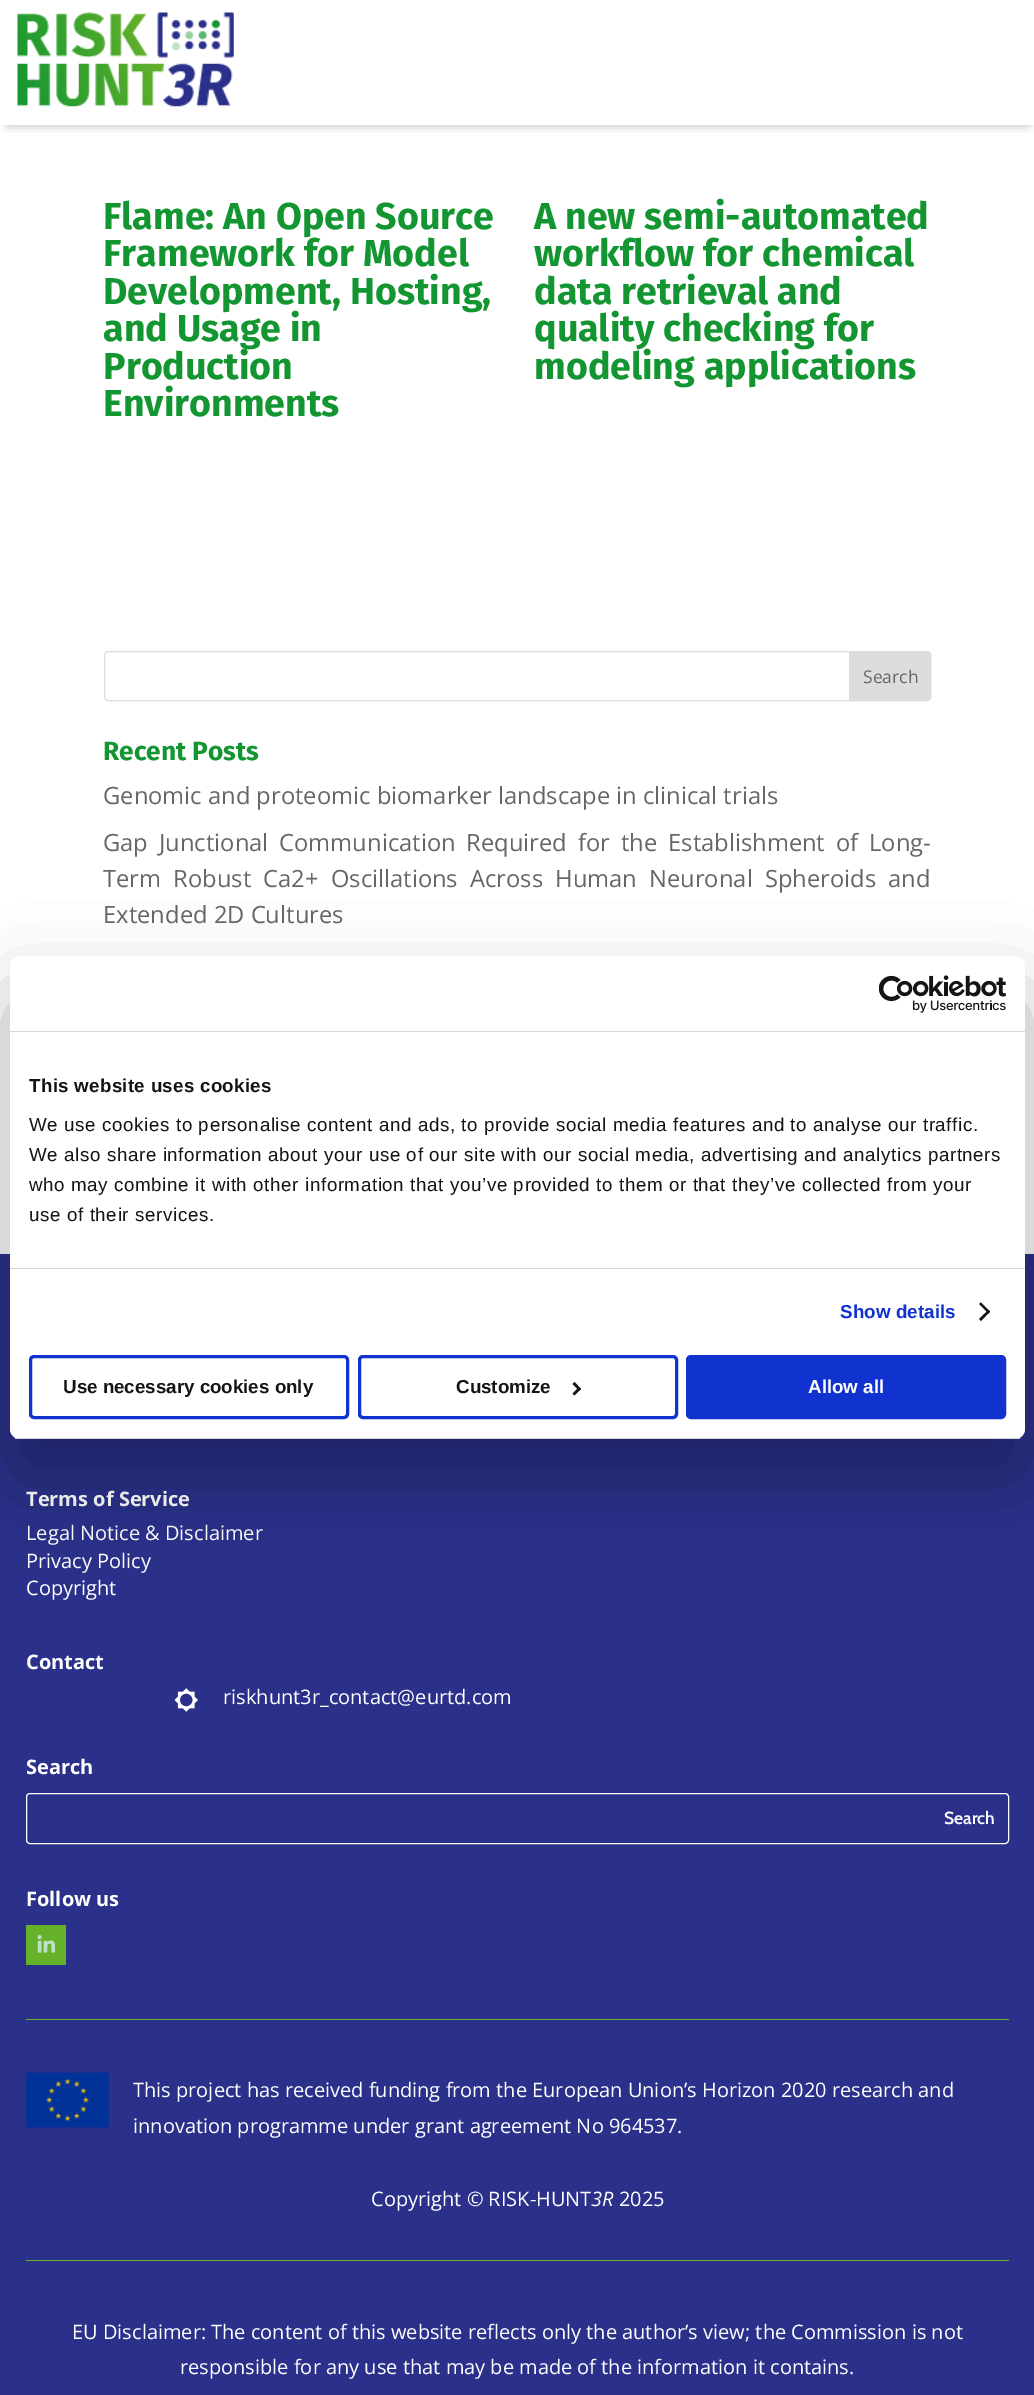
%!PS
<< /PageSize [1034 2395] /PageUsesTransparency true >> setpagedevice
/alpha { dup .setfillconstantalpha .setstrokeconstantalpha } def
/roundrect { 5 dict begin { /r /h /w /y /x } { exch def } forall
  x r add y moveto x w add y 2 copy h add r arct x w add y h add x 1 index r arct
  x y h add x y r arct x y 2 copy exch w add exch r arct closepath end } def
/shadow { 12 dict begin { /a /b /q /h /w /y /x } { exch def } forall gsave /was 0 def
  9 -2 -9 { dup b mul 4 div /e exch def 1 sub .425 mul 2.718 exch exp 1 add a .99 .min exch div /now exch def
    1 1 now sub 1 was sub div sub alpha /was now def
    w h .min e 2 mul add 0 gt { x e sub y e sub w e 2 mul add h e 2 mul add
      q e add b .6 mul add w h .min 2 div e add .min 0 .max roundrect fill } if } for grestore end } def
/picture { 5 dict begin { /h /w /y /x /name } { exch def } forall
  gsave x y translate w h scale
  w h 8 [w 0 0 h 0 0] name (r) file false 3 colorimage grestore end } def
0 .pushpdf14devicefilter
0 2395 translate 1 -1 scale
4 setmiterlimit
1 setgray
0 0 1034 2395 rectfill
gsave
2 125 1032 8 rectclip
0 setgray
8 15 1020 110 0 5.5 0.3 shadow
grestore
(img1.rgb) 17 12 217 95 picture
/FiraSans-Bold [37.5 0 0 -37.5 0 0] selectfont
0.075 0.588 0.192 setrgbcolor
103 229 moveto (Flame: An Open Source) show
103 266 moveto (Framework for Model) show
103 304 moveto (Development, Hosting,) show
103 341 moveto (and Usage in) show
103 379 moveto (Production) show
103 416 moveto (Environments) show
534 229 moveto (A new semi-automated) show
534 266 moveto (workflow for chemical) show
534 304 moveto (data retrieval and) show
534 341 moveto (quality checking for) show
534 379 moveto (modeling applications) show
0.867 setgray
104.5 651.5 826 49 3.5 roundrect stroke
newpath 849.5 651.5 moveto 927 651.5 lineto 929 651.5 930.5 653 930.5 655 curveto 930.5 697 lineto 930.5 699 929 700.5 927 700.5 curveto 849.5 700.5 lineto closepath gsave fill grestore
stroke
/OpenSans-Regular [17.5 0 0 -17.5 0 0] selectfont
0.4 setgray
863 683 moveto (Search) show
/FiraSans-Bold [26.25 0 0 -26.25 0 0] selectfont
0.075 0.588 0.192 setrgbcolor
103 760 moveto (Recent Posts) show
/OpenSans-Regular [23.75 0 0 -23.75 0 0] selectfont
0.4 setgray
103 804 moveto (Genomic and proteomic biomarker landscape in clinical trials) show
103 851 moveto 4.75 0 32 (Gap Junctional Communication Required for the Establishment of Long-) widthshow
103 887 moveto 6 0 32 (Term Robust Ca2+ Oscillations Across Human Neuronal Spheroids and) widthshow
103 923 moveto (Extended 2D Cultures) show
0.169 0.192 0.541 setrgbcolor
0 1254 1034 1141 rectfill
/OpenSans-Bold [20 0 0 -20 0 0] selectfont
1 setgray
26 1506 moveto (Terms of Service) show
/OpenSans-Regular [20 0 0 -20 0 0] selectfont
26 1540 moveto (Legal Notice & Disclaimer) show
26 1568 moveto (Privacy Policy) show
26 1595 moveto (Copyright) show
/OpenSans-Bold [20 0 0 -20 0 0] selectfont
26 1669 moveto (Contact) show
(img2.rgb) 174 1688 24 24 picture
/OpenSans-Regular [20 0 0 -20 0 0] selectfont
223 1704 moveto (riskhunt3r_contact@eurtd.com) show
/OpenSans-Bold [20 0 0 -20 0 0] selectfont
26 1774 moveto (Search) show
26.5 1793.5 982 50 3.5 roundrect stroke
/Cabin-SemiBold [17.5 0 0 -17.5 0 0] selectfont
944 1824 moveto (Search) show
/OpenSans-Bold [20 0 0 -20 0 0] selectfont
26 1906 moveto (Follow us) show
0.4 0.694 0.165 setrgbcolor
26 1925 40 40 rectfill
(img3.rgb) 37 1935 18 18 picture
26 2019 983 1 rectfill
(img4.rgb) 26 2072 83 56 picture
/OpenSans-Regular [20 0 0 -20 0 0] selectfont
1 setgray
133 2097 moveto (This project has received funding from the European Union’s Horizon 2020 research and) show
133 2133 moveto (innovation programme under grant agreement No 964537.) show
371 2206 moveto (Copyright © RISK-HUNT) show
/OpenSans-Italic [20 0 0 -20 0 0] selectfont
591 2206 moveto (3R) show
/OpenSans-Regular [20 0 0 -20 0 0] selectfont
619 2206 moveto (2025) show
0.4 0.694 0.165 setrgbcolor
26 2260 983 1 rectfill
1 setgray
72 2339 moveto (EU Disclaimer: The content of this website reflects only the author’s view; the Commission is not) show
180 2374 moveto (responsible for any use that may be made of the information it contains.) show
0 setgray
10 996 1015 483 10 42.5 0.3 shadow
1 setgray
10 956 1015 483 10 roundrect fill
0.839 setgray
10 1031 1015 1 rectfill
(img5.rgb) 879 975 127 38 picture
10 1268 1015 1 rectfill
/LiberationSans-Bold [18.75 0 0 -18.75 0 0] selectfont
0.078 setgray
29 1092 moveto 0.3 0 (This website uses cookies) ashow
/LiberationSans-Regular [18.75 0 0 -18.75 0 0] selectfont
29 1131 moveto 0.62 0 (We use cookies to personalise content and ads, to provide social media features and to analyse our traffic.) ashow
29 1161 moveto 0.62 0 (We also share information about your use of our site with our social media, advertising and analytics partners) ashow
29 1191 moveto 0.62 0 (who may combine it with other information that you’ve provided to them or that they’ve collected from your) ashow
29 1221 moveto 0.62 0 (use of their services.) ashow
/LiberationSans-Bold [18.75 0 0 -18.75 0 0] selectfont
0.063 0.196 0.812 setrgbcolor
840 1318 moveto 0.1 0 (Show details) ashow
0.078 setgray
newpath 981 1302.5 moveto 990 1311.5 lineto 988.5 1313.5 lineto 979 1304 lineto closepath fill
newpath 988.5 1310 moveto 990 1311.5 lineto 981 1321 lineto 979 1319 lineto closepath fill
gsave
10 956 1015 483 10 roundrect clip newpath
0.839 setgray
10 1438 1015 1 rectfill
grestore
0.063 0.196 0.812 setrgbcolor
3 setlinewidth
30.5 1356.5 317 61 3.5 roundrect stroke
0.078 setgray
63 1393 moveto (Use necessary cookies only) show
0.063 0.196 0.812 setrgbcolor
359.5 1356.5 317 61 3.5 roundrect stroke
0.078 setgray
456 1393 moveto (Customize) show
newpath 574.5 1382 moveto 581 1389 lineto 579 1390.5 lineto 572.5 1384 lineto closepath fill
newpath 579 1387 moveto 581 1389 lineto 574.5 1395.5 lineto 572.5 1393.5 lineto closepath fill
0.063 0.196 0.812 setrgbcolor
687.5 1356.5 317 61 3.5 roundrect gsave fill grestore
stroke
1 setgray
808 1393 moveto (Allow all) show
.poppdf14devicefilter showpage
